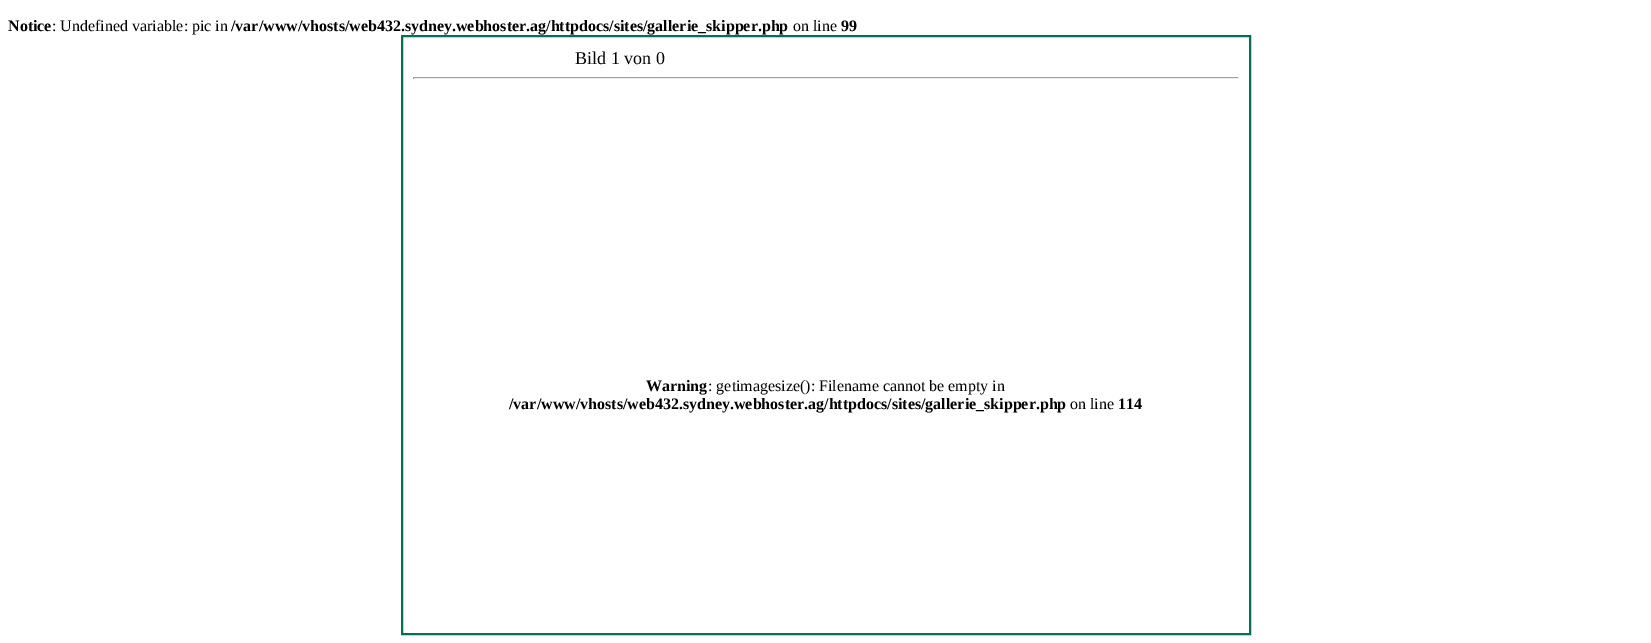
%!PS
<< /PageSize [1651 643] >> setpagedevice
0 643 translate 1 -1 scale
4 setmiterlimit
1 setgray
0 0 1651 643 rectfill
/LiberationSerif-Bold [16 0 0 -16 0 0] selectfont
0 setgray
8 31 moveto (Notice) show
/LiberationSerif-Regular [16 0 0 -16 0 0] selectfont
52 31 moveto (: Undefined variable: pic in) show
/LiberationSerif-Bold [16 0 0 -16 0 0] selectfont
231 31 moveto (/var/www/vhosts/web432.sydney.webhoster.ag/httpdocs/sites/gallerie_skipper.php) show
/LiberationSerif-Regular [16 0 0 -16 0 0] selectfont
793 31 moveto (on line) show
/LiberationSerif-Bold [16 0 0 -16 0 0] selectfont
841 31 moveto (99) show
0.016 0.435 0.349 setrgbcolor
2 setlinewidth
402 36 848 598 rectstroke
/LiberationSerif-Regular [18 0 0 -18 0 0] selectfont
0 setgray
575 64 moveto (Bild 1 von 0) show
0.624 setgray
413 77 826 1 rectfill
0.933 setgray
1238 77 1 2 rectfill
413 78 826 1 rectfill
0.624 setgray
413 77 1 2 rectfill
/LiberationSerif-Bold [16 0 0 -16 0 0] selectfont
0 setgray
646 391 moveto (Warning) show
/LiberationSerif-Regular [16 0 0 -16 0 0] selectfont
708 391 moveto (: getimagesize\(\): Filename cannot be empty in) show
/LiberationSerif-Bold [16 0 0 -16 0 0] selectfont
509 409 moveto (/var/www/vhosts/web432.sydney.webhoster.ag/httpdocs/sites/gallerie_skipper.php) show
/LiberationSerif-Regular [16 0 0 -16 0 0] selectfont
1070 409 moveto (on line) show
/LiberationSerif-Bold [16 0 0 -16 0 0] selectfont
1118 409 moveto (114) show
showpage
